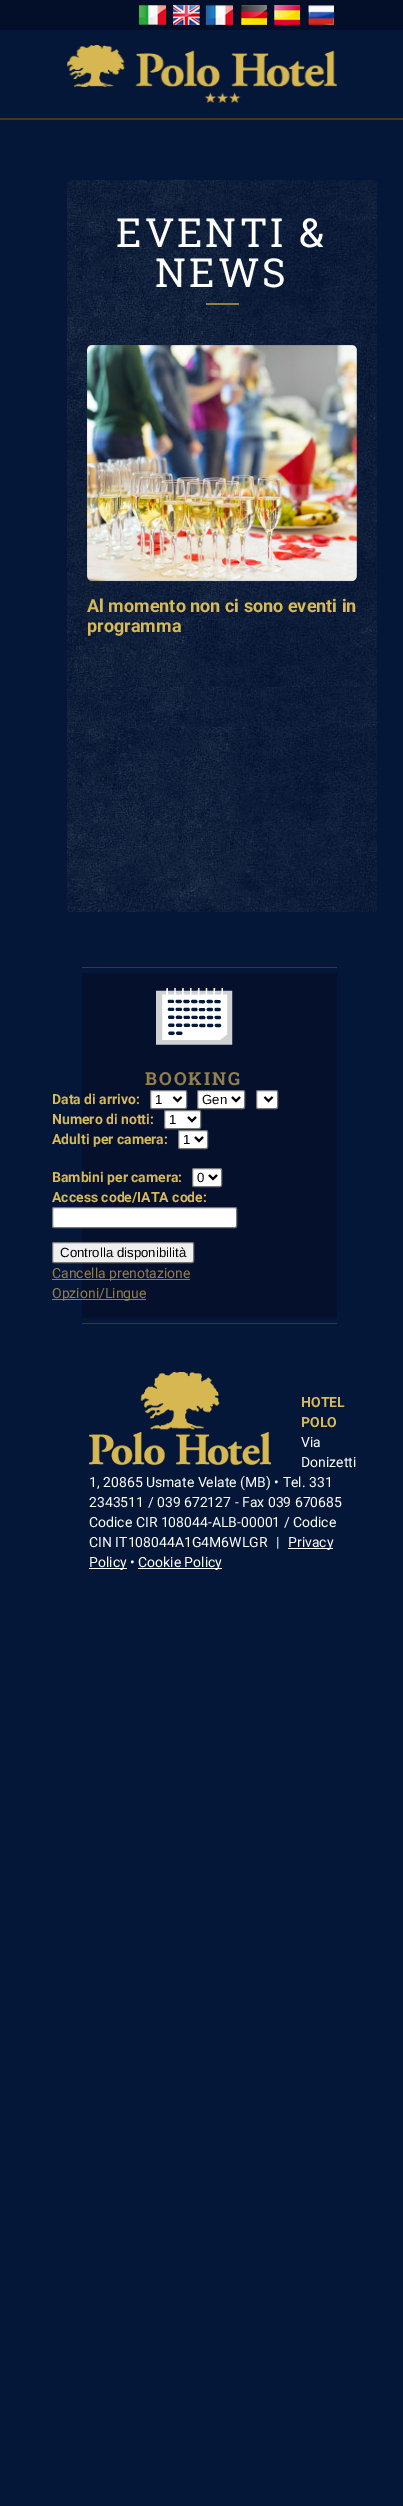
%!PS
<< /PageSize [403 2506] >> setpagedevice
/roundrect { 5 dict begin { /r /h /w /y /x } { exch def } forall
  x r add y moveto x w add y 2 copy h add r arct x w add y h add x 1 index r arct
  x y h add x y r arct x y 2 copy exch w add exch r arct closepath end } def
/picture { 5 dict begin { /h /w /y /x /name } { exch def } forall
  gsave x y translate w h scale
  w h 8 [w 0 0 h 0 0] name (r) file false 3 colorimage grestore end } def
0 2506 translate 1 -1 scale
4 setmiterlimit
0.016 0.09 0.224 setrgbcolor
0 0 403 2506 rectfill
0.012 0.059 0.161 setrgbcolor
0 0 403 30 rectfill
(img1.rgb) 139 5 27 20 picture
(img2.rgb) 173 5 27 20 picture
(img3.rgb) 206 5 27 20 picture
(img4.rgb) 241 5 26 20 picture
(img5.rgb) 274 5 26 20 picture
(img6.rgb) 308 5 26 20 picture
(img7.rgb) 67 45 270 58 picture
0.271 0.208 0.141 setrgbcolor
0 118 403 2 rectfill
(img8.rgb) 67 180 310 732 picture
/RobotoSlab-Regular [40 0 0 -40 0 0] selectfont
1 setgray
116 247 moveto 3 0 (EVENTI &) ashow
155 287 moveto 3 0 (NEWS) ashow
0.569 0.494 0.29 setrgbcolor
206 303 33 2 rectfill
(img9.rgb) 87 345 270 237 picture
/Roboto-Bold [18 0 0 -18 0 0] selectfont
0.843 0.725 0.341 setrgbcolor
87 612 moveto (Al momento non ci sono eventi in) show
87 632 moveto (programma) show
0.271 0.208 0.141 setrgbcolor
82 967 255 1 rectfill
0.02 0.063 0.173 setrgbcolor
82 973 255 345 rectfill
(img10.rgb) 156 988 77 57 picture
/RobotoSlab-Bold [18 0 0 -18 0 0] selectfont
0.569 0.494 0.29 setrgbcolor
145 1085 moveto 2 0 (BOOKING) ashow
/Roboto-Bold [14 0 0 -14 0 0] selectfont
0.843 0.725 0.341 setrgbcolor
52 1104 moveto (Data di arrivo:) show
1 setgray
150.5 1090.5 36 18 1.5 roundrect gsave fill grestore
0.463 setgray
stroke
0 setgray
2 setlinewidth
newpath 173.5 1097 moveto 177.5 1101 lineto 181.5 1097 lineto stroke
/LiberationSans-Regular [13.25 0 0 -13.25 0 0] selectfont
155 1104 moveto (1) show
1 setgray
197.5 1090.5 47 18 1.5 roundrect gsave fill grestore
0.463 setgray
1 setlinewidth
stroke
0 setgray
2 setlinewidth
newpath 232 1097 moveto 236 1101 lineto 240 1097 lineto stroke
202 1104 moveto (Gen) show
1 setgray
256.5 1090.5 21 18 1.5 roundrect gsave fill grestore
0.463 setgray
1 setlinewidth
stroke
0 setgray
2 setlinewidth
newpath 264.5 1097 moveto 268.5 1101 lineto 272.5 1097 lineto stroke
/Roboto-Bold [14 0 0 -14 0 0] selectfont
0.843 0.725 0.341 setrgbcolor
52 1124 moveto (Numero di notti:) show
1 setgray
164.5 1110.5 36 18 1.5 roundrect gsave fill grestore
0.463 setgray
1 setlinewidth
stroke
0 setgray
2 setlinewidth
newpath 188 1117 moveto 192 1121 lineto 196 1117 lineto stroke
/LiberationSans-Regular [13.25 0 0 -13.25 0 0] selectfont
169 1124 moveto (1) show
/Roboto-Bold [14 0 0 -14 0 0] selectfont
0.843 0.725 0.341 setrgbcolor
52 1144 moveto (Adulti per camera:) show
1 setgray
178.5 1130.5 29 18 1.5 roundrect gsave fill grestore
0.463 setgray
1 setlinewidth
stroke
0 setgray
2 setlinewidth
newpath 195 1137 moveto 199 1141 lineto 203 1137 lineto stroke
/LiberationSans-Regular [13.25 0 0 -13.25 0 0] selectfont
183 1144 moveto (1) show
/Roboto-Bold [14 0 0 -14 0 0] selectfont
0.843 0.725 0.341 setrgbcolor
52 1182 moveto (Bambini per camera:) show
1 setgray
192.5 1168.5 29 18 1.5 roundrect gsave fill grestore
0.463 setgray
1 setlinewidth
stroke
0 setgray
2 setlinewidth
newpath 209 1175 moveto 213 1179 lineto 217 1175 lineto stroke
/LiberationSans-Regular [13.25 0 0 -13.25 0 0] selectfont
197 1182 moveto (0) show
/Roboto-Bold [14 0 0 -14 0 0] selectfont
0.843 0.725 0.341 setrgbcolor
52 1202 moveto (Access code/IATA code:) show
1 setgray
52.5 1207.5 184 20 1.5 roundrect gsave fill grestore
0.463 setgray
1 setlinewidth
stroke
0.937 setgray
52.5 1242.5 141 20 1.5 roundrect gsave fill grestore
0.463 setgray
stroke
/LiberationSans-Regular [13.25 0 0 -13.25 0 0] selectfont
0 setgray
60 1257 moveto (Controlla disponibilità) show
0.569 0.494 0.29 setrgbcolor
52 1279 138 1 rectfill
/Roboto-Regular [14 0 0 -14 0 0] selectfont
52 1278 moveto (Cancella prenotazione) show
52 1299 94 1 rectfill
52 1298 moveto (Opzioni/Lingue) show
0.271 0.208 0.141 setrgbcolor
82 1323 255 1 rectfill
(img11.rgb) 89 1372 182 93 picture
/Roboto-Bold [14 0 0 -14 0 0] selectfont
0.843 0.725 0.341 setrgbcolor
301 1407 moveto (HOTEL) show
301 1427 moveto (POLO) show
/Roboto-Regular [14 0 0 -14 0 0] selectfont
1 setgray
301 1447 moveto (Via) show
301 1467 moveto (Donizetti) show
89 1487 moveto (1, 20865 Usmate Velate \(MB\) • Tel. 331) show
89 1507 moveto (2343511 / 039 672127 - Fax 039 670685) show
89 1527 moveto (Codice CIR 108044-ALB-00001 / Codice) show
89 1547 moveto (CIN IT108044A1G4M6WLGR) show
276 1547 moveto (|) show
288 1548 45 1 rectfill
288 1547 moveto (Privacy) show
89 1568 38 1 rectfill
89 1567 moveto (Policy •) show
138 1568 84 1 rectfill
138 1567 moveto (Cookie Policy) show
showpage
